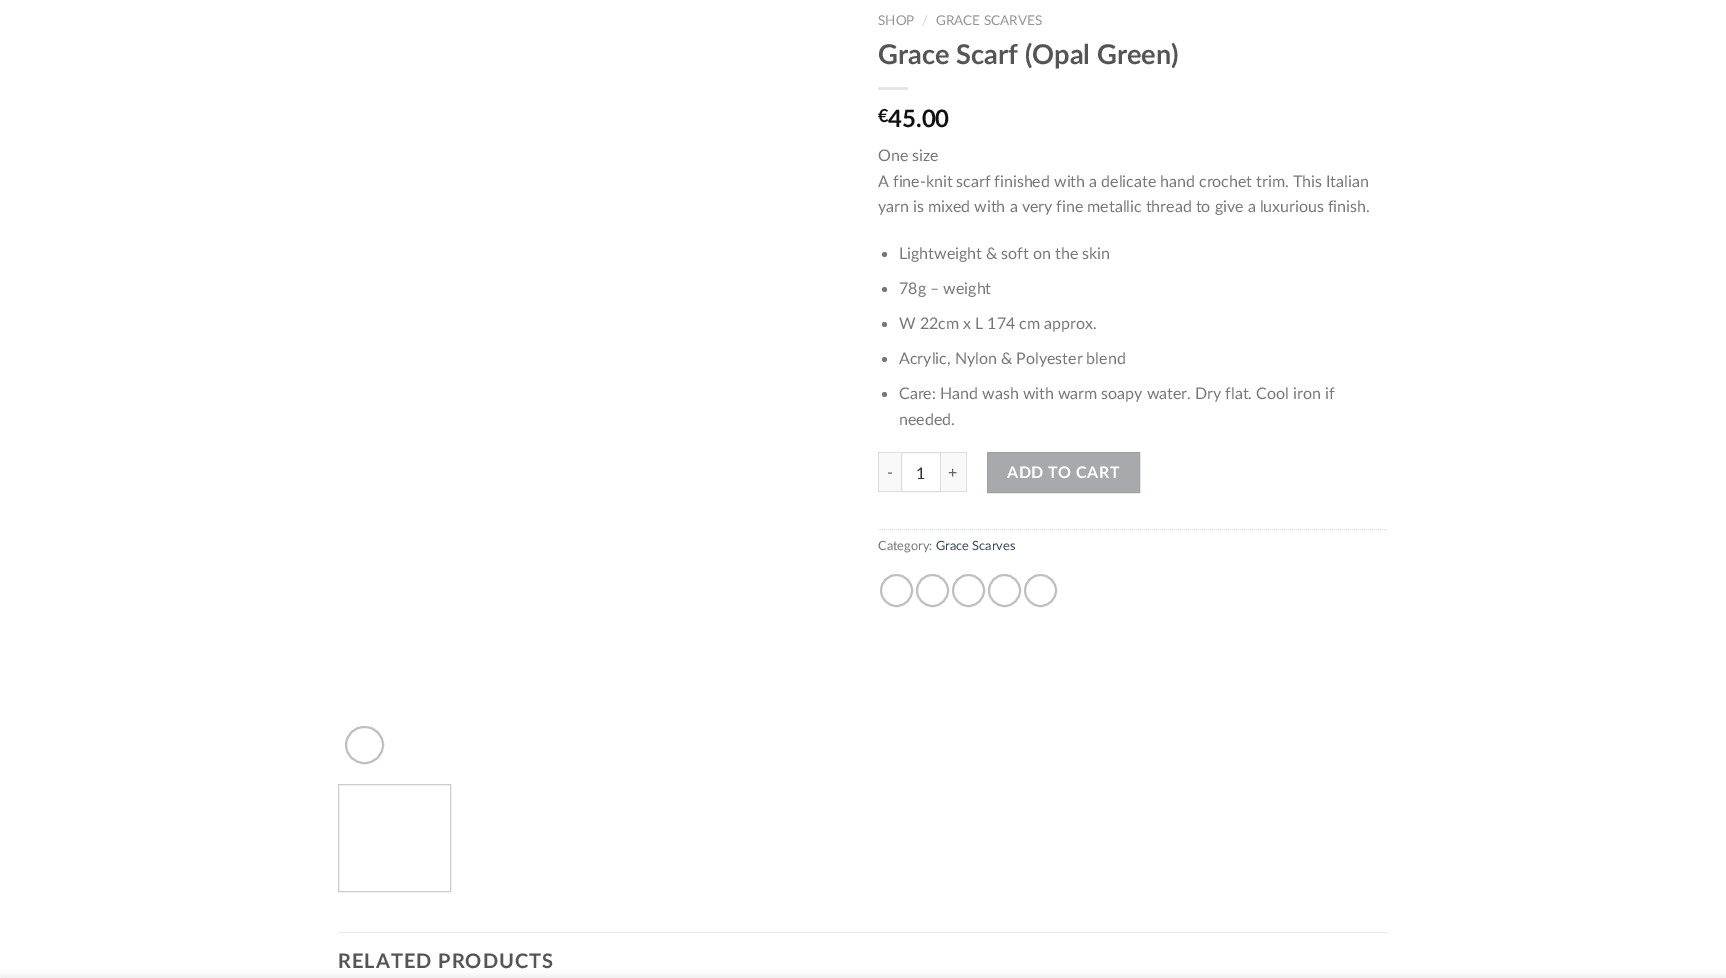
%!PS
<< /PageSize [1726 978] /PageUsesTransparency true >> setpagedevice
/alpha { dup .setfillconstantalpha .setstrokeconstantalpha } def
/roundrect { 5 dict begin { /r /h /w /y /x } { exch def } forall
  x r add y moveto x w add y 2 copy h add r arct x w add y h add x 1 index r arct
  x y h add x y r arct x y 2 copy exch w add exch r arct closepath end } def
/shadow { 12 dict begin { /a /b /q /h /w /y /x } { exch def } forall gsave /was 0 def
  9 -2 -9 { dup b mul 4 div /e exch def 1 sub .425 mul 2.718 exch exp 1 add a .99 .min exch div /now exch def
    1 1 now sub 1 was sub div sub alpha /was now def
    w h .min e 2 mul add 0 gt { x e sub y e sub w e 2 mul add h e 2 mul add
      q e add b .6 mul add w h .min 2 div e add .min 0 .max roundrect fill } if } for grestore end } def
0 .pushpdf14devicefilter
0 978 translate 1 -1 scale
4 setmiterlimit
1 setgray
0 0 1726 978 rectfill
/Lato-Regular [13.5 0 0 -13.5 0 0] selectfont
0.58 setgray
878 25 moveto (SHOP) show
/Lato-Light [13.5 0 0 -13.5 0 0] selectfont
0.698 setgray
922 25 moveto (/) show
/Lato-Regular [13.5 0 0 -13.5 0 0] selectfont
0.58 setgray
936 25 moveto (GRACE SCARVES) show
/Lato-Bold [27.25 0 0 -27.25 0 0] selectfont
0.333 setgray
878 64 moveto (Grace Scarf \(Opal Green\)) show
0.902 setgray
878 87 30 3 rectfill
/Lato-Bold [18 0 0 -18 0 0] selectfont
0.067 setgray
878 122 moveto (€) show
/Lato-Bold [24 0 0 -24 0 0] selectfont
888 127 moveto (45.00) show
/Lato-Regular [16 0 0 -16 0 0] selectfont
0.467 setgray
878 161 moveto (One size) show
878 187 moveto (A fine-knit scarf finished with a delicate hand crochet trim. This Italian) show
878 212 moveto (yarn is mixed with a very fine metallic thread to give a luxurious finish.) show
newpath 884.5 254.5 2.5 0 360 arc closepath fill
899 259 moveto (Lightweight & soft on the skin) show
newpath 884.5 289.5 2.5 0 360 arc closepath fill
899 294 moveto (78g – weight) show
newpath 884.5 324.5 2.5 0 360 arc closepath fill
899 329 moveto (W 22cm x L 174 cm approx.) show
newpath 884.5 359.5 2.5 0 360 arc closepath fill
899 364 moveto (Acrylic, Nylon & Polyester blend) show
newpath 884.5 394.5 2.5 0 360 arc closepath fill
899 399 moveto (Care: Hand wash with warm soapy water. Dry flat. Cool iron if) show
899 425 moveto (needed.) show
0.976 setgray
879 453 22 38 rectfill
0.867 setgray
878 452 23 1 rectfill
878 491 23 1 rectfill
878 452 1 40 rectfill
0.4 setgray
887 478 moveto (-) show
0.867 setgray
901.5 452.5 39 39 rectstroke
0.2 setgray
916 479 moveto (1) show
0.976 setgray
941 453 25 38 rectfill
0.867 setgray
941 452 26 1 rectfill
966 452 1 40 rectfill
941 491 26 1 rectfill
0.4 setgray
948 478 moveto (+) show
0.659 0.663 0.678 setrgbcolor
newpath 987.5 452.5 moveto 1139.5 452.5 lineto 1139.5 492.5 lineto 987.5 492.5 lineto closepath gsave fill grestore
0.627 0.631 0.643 setrgbcolor
stroke
/Lato-Bold [16 0 0 -16 0 0] selectfont
1 setgray
1007 478 moveto 0.5 0 (ADD TO CART) ashow
0.867 setgray
[1 1] 0 setdash
newpath 878 529.5 moveto 1388 529.5 lineto stroke
/Lato-Regular [12.75 0 0 -12.75 0 0] selectfont
0.467 setgray
878 550 moveto (Category:) show
0.2 0.282 0.384 setrgbcolor
936 550 moveto (Grace Scarves) show
0.753 setgray
2 setlinewidth
[] 0 setdash
newpath 896.5 590.5 15.5 0 360 arc closepath stroke
newpath 932.5 590.5 15.5 0 360 arc closepath stroke
newpath 968.5 590.5 15.5 0 360 arc closepath stroke
newpath 1004.5 590.5 15.5 0 360 arc closepath stroke
newpath 1040.5 590.5 15.5 0 360 arc closepath stroke
346 727 37 36 18 roundrect stroke
0.8 setgray
1 setlinewidth
338.5 784.5 112 107 rectstroke
0.925 setgray
338 932 1050 1 rectfill
/Lato-Bold [20 0 0 -20 0 0] selectfont
0.333 setgray
338 968 moveto 1 0 (RELATED PRODUCTS) ashow
0 setgray
0 978 1726 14 0 4.5 0.14 shadow
.poppdf14devicefilter showpage
